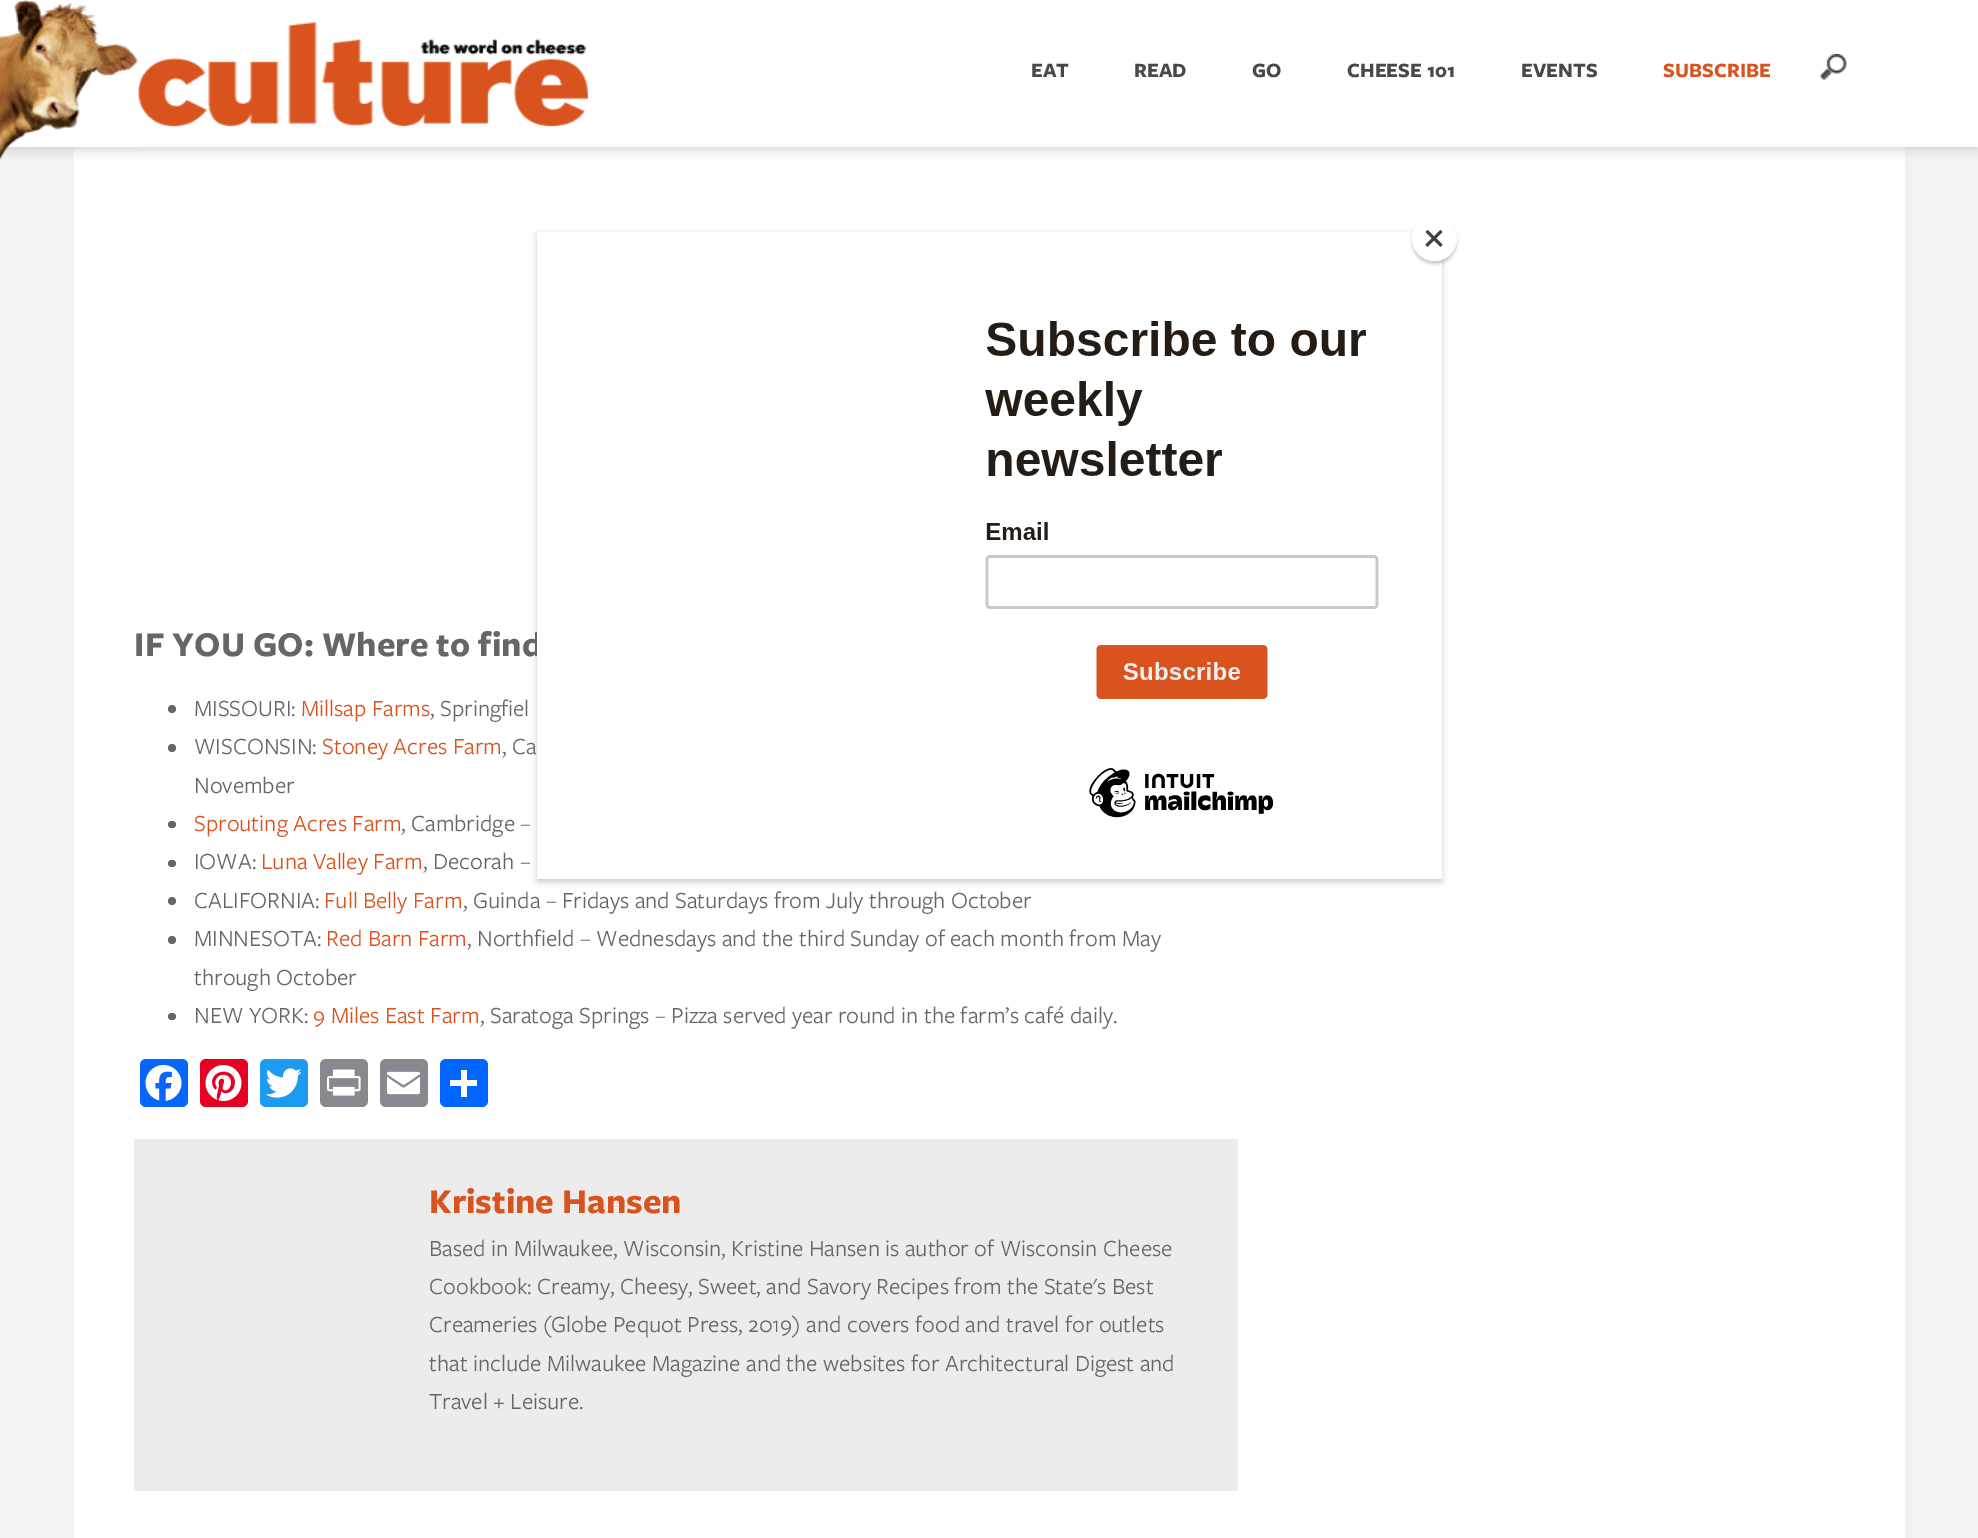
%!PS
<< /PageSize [1978 1538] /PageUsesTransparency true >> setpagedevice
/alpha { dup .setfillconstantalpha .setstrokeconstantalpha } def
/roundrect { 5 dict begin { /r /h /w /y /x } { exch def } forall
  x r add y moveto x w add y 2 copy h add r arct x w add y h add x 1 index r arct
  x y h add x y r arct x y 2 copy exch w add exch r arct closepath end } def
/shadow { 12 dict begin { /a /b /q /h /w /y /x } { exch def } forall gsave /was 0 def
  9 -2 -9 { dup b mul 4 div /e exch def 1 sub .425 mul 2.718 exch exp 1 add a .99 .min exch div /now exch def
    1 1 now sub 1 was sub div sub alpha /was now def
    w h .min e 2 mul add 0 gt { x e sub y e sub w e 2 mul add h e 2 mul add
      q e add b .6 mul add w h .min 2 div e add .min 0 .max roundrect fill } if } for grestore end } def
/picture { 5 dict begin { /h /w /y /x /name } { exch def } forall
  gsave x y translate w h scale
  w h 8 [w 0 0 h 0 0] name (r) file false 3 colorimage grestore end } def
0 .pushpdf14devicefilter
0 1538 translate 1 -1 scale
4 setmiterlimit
0.949 setgray
0 0 1978 1538 rectfill
1 setgray
74 147 1831 1391 rectfill
0.8 setgray
-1 2 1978 147 0 6 1 shadow
1 setgray
0 0 1978 147 rectfill
(img1.rgb) 0 0 138 160 picture
(img2.rgb) 138 22 450 105 picture
/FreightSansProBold-Bold [21 0 0 -21 0 0] selectfont
0.282 setgray
1031 77 moveto (EAT) show
1134 77 moveto (READ) show
1252 77 moveto (GO) show
1347 77 moveto (CHEESE 101) show
1521 77 moveto (EVENTS) show
0.851 0.325 0.118 setrgbcolor
1663 77 moveto (SUBSCRIBE) show
(img3.rgb) 1819 54 28 27 picture
0 setgray
537 234 905 648 0 3 0.2 shadow
/FreightSansProBold-Bold [36 0 0 -36 0 0] selectfont
0.4 setgray
134 656 moveto (IF YOU GO: Where to find) show
(img4.rgb) 537 232 905 647 picture
0 setgray
1412 219 45 45 22.5 1.5 0.2 shadow
1 setgray
newpath 1434.5 238.5 22.5 0 360 arc closepath fill
0.255 setgray
newpath 1440.5 230 moveto 1442.5 232 lineto 1427.5 247 lineto 1425.5 244.5 lineto closepath fill
newpath 1425.5 232 moveto 1427.5 230 lineto 1442.5 244.5 lineto 1440.5 247 lineto closepath fill
0.4 setgray
newpath 172 709 4 0 360 arc closepath fill
/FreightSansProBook-Regular [24 0 0 -24 0 0] selectfont
194 716 moveto (MISSOURI:) show
0.851 0.325 0.118 setrgbcolor
301 716 moveto (Millsap Farms) show
0.4 setgray
430 716 moveto (, Springfiel) show
newpath 172 748 4 0 360 arc closepath fill
194 754 moveto (WISCONSIN:) show
0.851 0.325 0.118 setrgbcolor
322 754 moveto (Stoney Acres Farm) show
0.4 setgray
502 754 moveto (, Ca) show
194 793 moveto (November) show
168 821 8 7 3.5 roundrect fill
0.851 0.325 0.118 setrgbcolor
194 831 moveto (Sprouting Acres Farm) show
0.4 setgray
401 831 moveto (, Cambridge –) show
168 860 8 7 3.5 roundrect fill
194 869 moveto (IOWA:) show
0.851 0.325 0.118 setrgbcolor
261 869 moveto (Luna Valley Farm) show
0.4 setgray
423 869 moveto (, Decorah –) show
newpath 172 901 4 0 360 arc closepath fill
194 908 moveto (CALIFORNIA:) show
0.851 0.325 0.118 setrgbcolor
324 908 moveto (Full Belly Farm) show
0.4 setgray
463 908 moveto (, Guinda – Fridays and Saturdays from July through October) show
newpath 172 940 4 0 360 arc closepath fill
194 946 moveto (MINNESOTA:) show
0.851 0.325 0.118 setrgbcolor
326 946 moveto (Red Barn Farm) show
0.4 setgray
467 946 moveto (, Northfield – Wednesdays and the third Sunday of each month from May) show
194 985 moveto (through October) show
168 1013 8 7 3.5 roundrect fill
194 1023 moveto (NEW YORK:) show
0.851 0.325 0.118 setrgbcolor
313 1023 moveto (9 Miles East Farm) show
0.4 setgray
480 1023 moveto (, Saratoga Springs – Pizza served year round in the farm’s café daily.) show
0.031 0.4 1 setrgbcolor
140 1059 48 48 6 roundrect fill
(img5.rgb) 145 1065 37 36 picture
0.902 0 0.137 setrgbcolor
200 1059 48 48 6 roundrect fill
(img6.rgb) 205 1065 37 36 picture
0.114 0.608 0.941 setrgbcolor
260 1059 48 48 6 roundrect fill
(img7.rgb) 265 1068 37 30 picture
0.533 0.537 0.565 setrgbcolor
320 1059 48 48 6 roundrect fill
(img8.rgb) 327 1069 34 27 picture
380 1059 48 48 6 roundrect fill
(img9.rgb) 387 1071 33 24 picture
0.004 0.4 1 setrgbcolor
440 1059 48 48 6 roundrect fill
1 setgray
461 1070 6 27 rectfill
450 1080 27 6 rectfill
0.925 setgray
134 1139 1104 352 rectfill
/FreightSansProBold-Bold [36 0 0 -36 0 0] selectfont
0.851 0.325 0.118 setrgbcolor
429 1213 moveto (Kristine Hansen) show
/FreightSansProBook-Regular [24 0 0 -24 0 0] selectfont
0.4 setgray
429 1256 moveto (Based in Milwaukee, Wisconsin, Kristine Hansen is author of Wisconsin Cheese) show
429 1294 moveto (Cookbook: Creamy, Cheesy, Sweet, and Savory Recipes from the State's Best) show
429 1332 moveto (Creameries \(Globe Pequot Press, 2019\) and covers food and travel for outlets) show
429 1371 moveto (that include Milwaukee Magazine and the websites for Architectural Digest and) show
429 1409 moveto (Travel + Leisure.) show
.poppdf14devicefilter showpage
